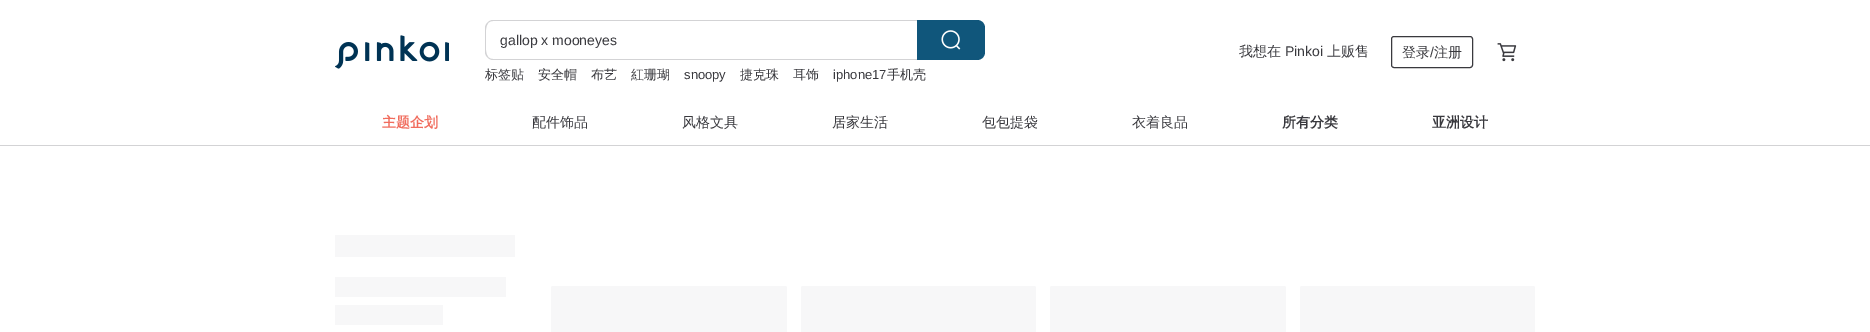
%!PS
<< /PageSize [1870 332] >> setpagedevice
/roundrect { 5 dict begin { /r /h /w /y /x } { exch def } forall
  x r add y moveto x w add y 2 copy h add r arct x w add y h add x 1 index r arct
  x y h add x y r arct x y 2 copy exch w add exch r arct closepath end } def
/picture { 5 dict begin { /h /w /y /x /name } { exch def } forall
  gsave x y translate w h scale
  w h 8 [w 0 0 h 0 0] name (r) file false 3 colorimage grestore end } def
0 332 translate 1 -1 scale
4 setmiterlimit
1 setgray
0 0 1870 332 rectfill
(img1.rgb) 335 35 114 34 picture
0.827 0.827 0.835 setrgbcolor
newpath 493 20 moveto 917 20 lineto 917 60 lineto 493 60 lineto 489 60 485 56 485 52 curveto 485 28 lineto 485 24 489 20 493 20 curveto closepath 493 21 moveto 917 21 lineto 917 59 lineto 493 59 lineto 484 59 486 46 486 40 curveto 486 34 484 21 493 21 curveto closepath eofill
/LiberationSans-Regular [14 0 0 -14 0 0] selectfont
0.224 0.224 0.243 setrgbcolor
500 45 moveto (gallop x mooneyes) show
0.063 0.337 0.482 setrgbcolor
newpath 917 20 moveto 977 20 lineto 981.5 20 985 23.5 985 28 curveto 985 52 lineto 985 56.5 981.5 60 977 60 curveto 917 60 lineto closepath fill
(img2.rgb) 941 30 20 20 picture
/WenQuanYiZenHei-Medium [13 0 0 -13 0 0] selectfont
0.224 0.224 0.243 setrgbcolor
485 79 moveto (标签贴) show
538 79 moveto (安全帽) show
591 79 moveto (布艺) show
631 79 moveto (紅珊瑚) show
/LiberationSans-Regular [13 0 0 -13 0 0] selectfont
684 79 moveto (snoopy) show
/WenQuanYiZenHei-Medium [13 0 0 -13 0 0] selectfont
740 79 moveto (捷克珠) show
793 79 moveto (耳饰) show
/LiberationSans-Regular [13 0 0 -13 0 0] selectfont
833 79 moveto (iphone17) show
/WenQuanYiZenHei-Medium [13 0 0 -13 0 0] selectfont
887 79 moveto (手机壳) show
/WenQuanYiZenHei-Medium [14 0 0 -14 0 0] selectfont
1239 56 moveto (我想在) show
/LiberationSans-Regular [14 0 0 -14 0 0] selectfont
1285 56 moveto (Pinkoi) show
/WenQuanYiZenHei-Medium [14 0 0 -14 0 0] selectfont
1327 56 moveto (上贩售) show
1391.5 36.5 81 31 2.5 roundrect stroke
1402 57 moveto (登录) show
/LiberationSans-Regular [14 0 0 -14 0 0] selectfont
1430 57 moveto (/) show
/WenQuanYiZenHei-Medium [14 0 0 -14 0 0] selectfont
1434 57 moveto (注册) show
(img3.rgb) 1497 43 20 19 picture
0.827 0.827 0.835 setrgbcolor
0 145 1870 1 rectfill
/WenQuanYiZenHei-Bold [14 0 0 -14 0 0] selectfont
0.945 0.424 0.365 setrgbcolor
382 127 moveto (主题企划) show
/WenQuanYiZenHei-Medium [14 0 0 -14 0 0] selectfont
0.224 0.224 0.243 setrgbcolor
532 127 moveto (配件饰品) show
682 127 moveto (风格文具) show
832 127 moveto (居家生活) show
982 127 moveto (包包提袋) show
1132 127 moveto (衣着良品) show
/WenQuanYiZenHei-Bold [14 0 0 -14 0 0] selectfont
1282 127 moveto (所有分类) show
1432 127 moveto (亚洲设计) show
0.969 0.969 0.973 setrgbcolor
335 235 180 22 rectfill
335 277 171 20 rectfill
335 305 108 20 rectfill
551 286 236 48 2 roundrect fill
801 286 235 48 2 roundrect fill
1050 286 236 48 2 roundrect fill
1300 286 235 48 2 roundrect fill
showpage
